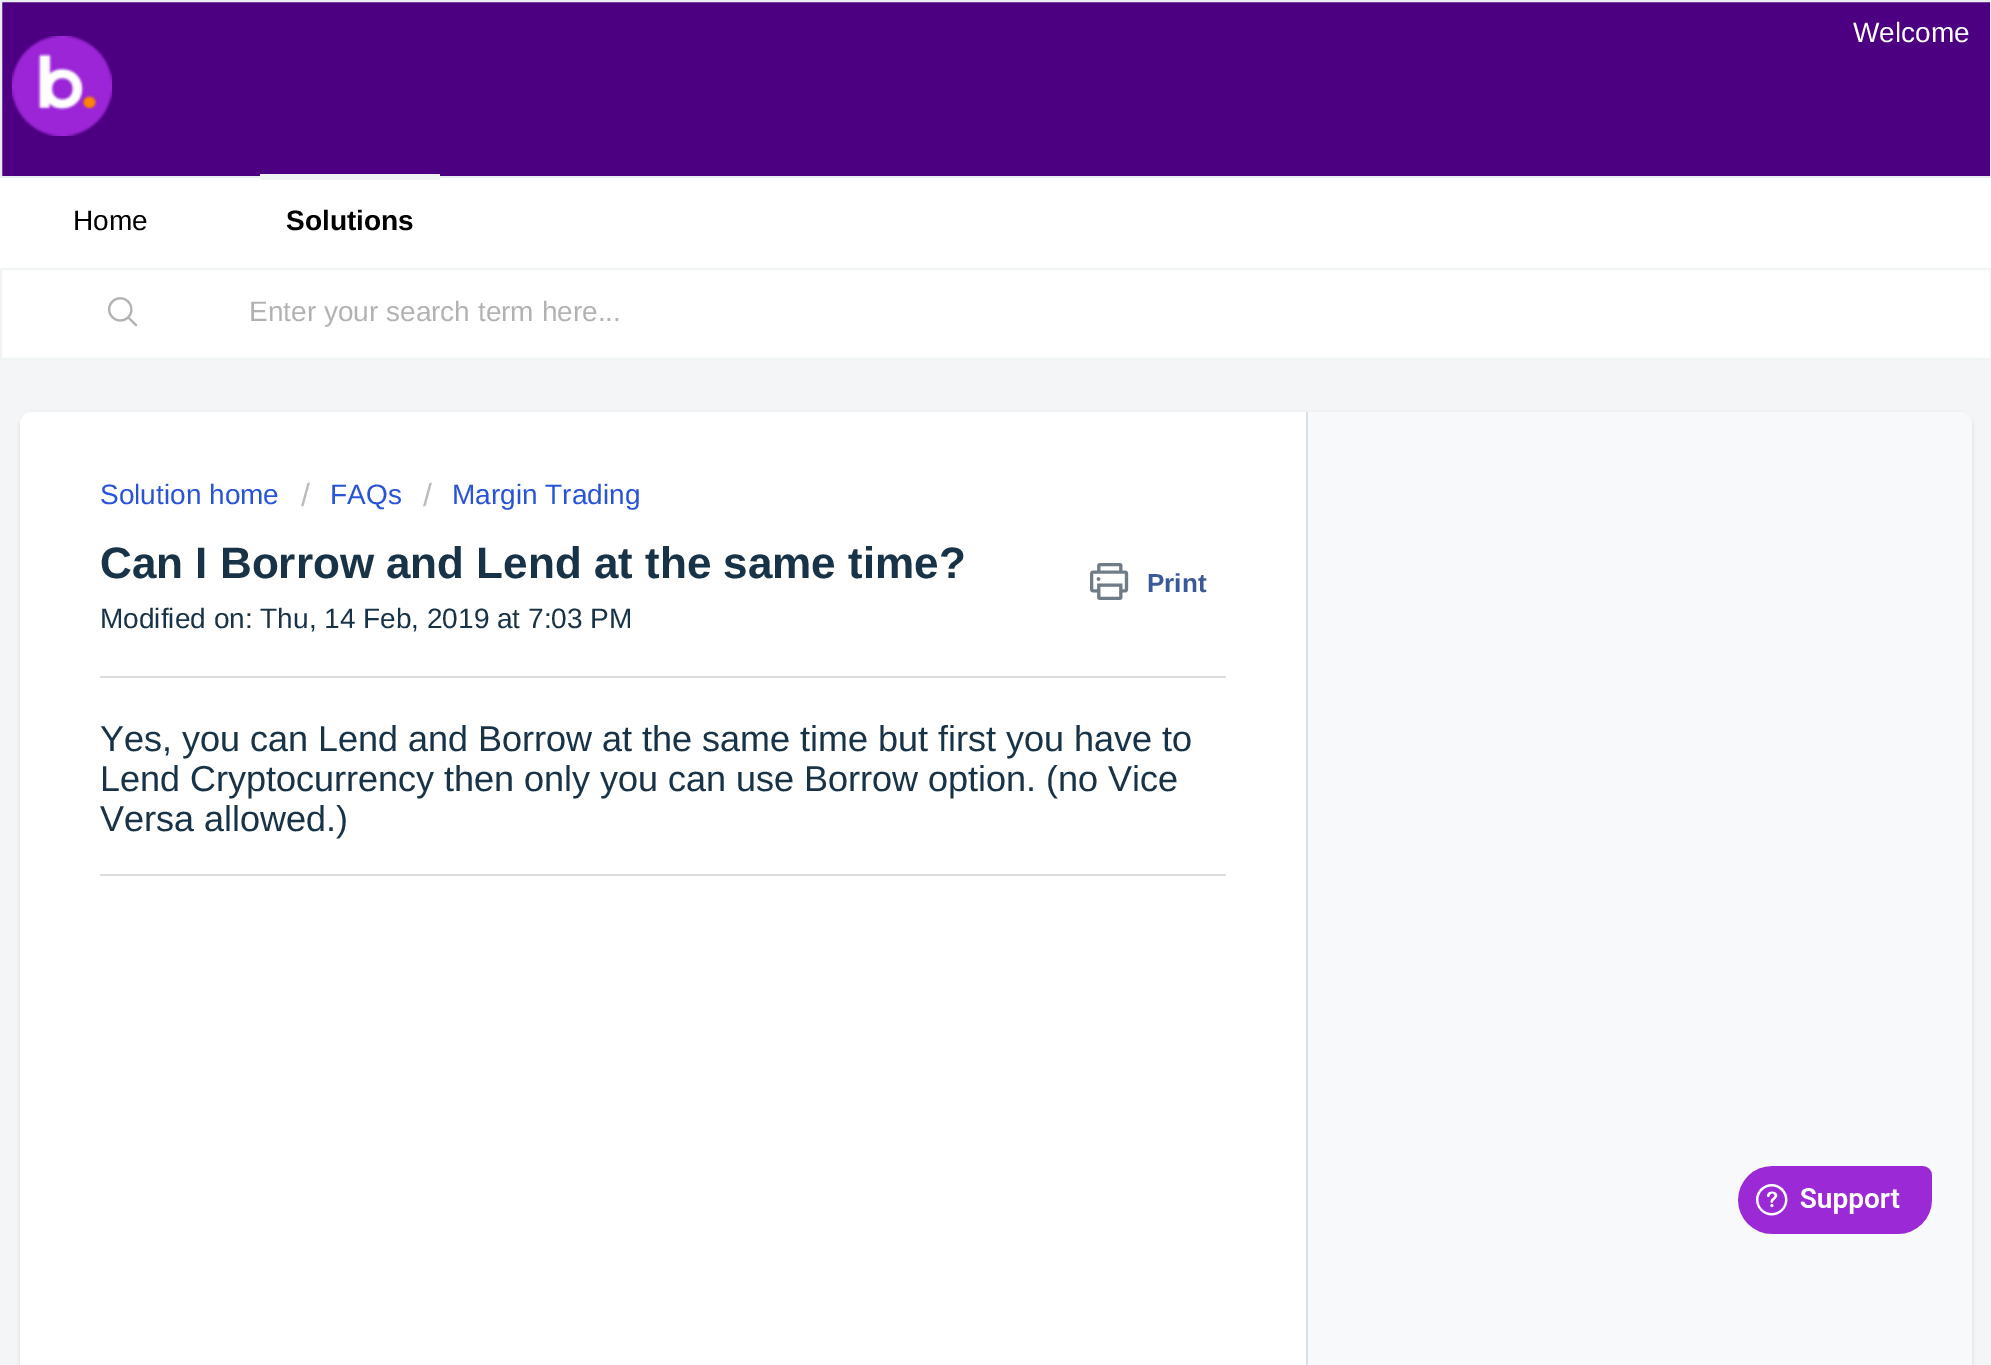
%!PS
<< /PageSize [1991 1365] /PageUsesTransparency true >> setpagedevice
/alpha { dup .setfillconstantalpha .setstrokeconstantalpha } def
/roundrect { 5 dict begin { /r /h /w /y /x } { exch def } forall
  x r add y moveto x w add y 2 copy h add r arct x w add y h add x 1 index r arct
  x y h add x y r arct x y 2 copy exch w add exch r arct closepath end } def
/shadow { 12 dict begin { /a /b /q /h /w /y /x } { exch def } forall gsave /was 0 def
  9 -2 -9 { dup b mul 4 div /e exch def 1 sub .425 mul 2.718 exch exp 1 add a .99 .min exch div /now exch def
    1 1 now sub 1 was sub div sub alpha /was now def
    w h .min e 2 mul add 0 gt { x e sub y e sub w e 2 mul add h e 2 mul add
      q e add b .6 mul add w h .min 2 div e add .min 0 .max roundrect fill } if } for grestore end } def
/picture { 5 dict begin { /h /w /y /x /name } { exch def } forall
  gsave x y translate w h scale
  w h 8 [w 0 0 h 0 0] name (r) file false 3 colorimage grestore end } def
0 .pushpdf14devicefilter
0 1365 translate 1 -1 scale
4 setmiterlimit
0.953 0.961 0.969 setrgbcolor
0 0 1991 1365 rectfill
0.298 0 0.506 setrgbcolor
newpath 1 1 moveto 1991 1 lineto 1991 177 lineto 1 177 lineto closepath gsave fill grestore
0.922 0.933 0.941 setrgbcolor
2 setlinewidth
stroke
/LiberationSans-Regular [28 0 0 -28 0 0] selectfont
1 setgray
1853 42 moveto (Welcome) show
(img1.rgb) 12 36 100 100 picture
0 178 1991 90 rectfill
0 setgray
73 230 moveto (Home) show
0.941 0.961 0.953 setrgbcolor
260 174 180 6 rectfill
/LiberationSans-Bold [28 0 0 -28 0 0] selectfont
0 setgray
286 230 moveto (Solutions) show
1 setgray
newpath 1 269 moveto 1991 269 lineto 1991 359 lineto 1 359 lineto closepath gsave fill grestore
0.941 0.961 0.953 setrgbcolor
stroke
(img2.rgb) 108 297 30 30 picture
/LiberationSans-Regular [28 0 0 -28 0 0] selectfont
0.698 setgray
249 321 moveto (Enter your search term here...) show
0.247 0.247 0.267 setrgbcolor
20 414 1952 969 12 2 0.15 shadow
0.973 0.976 0.98 setrgbcolor
20 412 1952 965 12 roundrect fill
newpath 1308 412 moveto 1960 412 lineto 1966.5 412 1972 417.5 1972 424 curveto 1972 440 lineto 1972 446.5 1966.5 452 1960 452 curveto 1308 452 lineto closepath fill
1 setgray
newpath 32 412 moveto 1308 412 lineto 1308 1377 lineto 32 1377 lineto 25.5 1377 20 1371.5 20 1365 curveto 20 424 lineto 20 417.5 25.5 412 32 412 curveto closepath fill
0.855 0.875 0.89 setrgbcolor
1306 412 2 953 rectfill
0.153 0.325 0.843 setrgbcolor
100 504 moveto (Solution home) show
/LiberationSans-Regular [32 0 0 -32 0 0] selectfont
0.733 setgray
301 506 moveto (/) show
/LiberationSans-Regular [28 0 0 -28 0 0] selectfont
0.153 0.325 0.843 setrgbcolor
330 504 moveto (FAQs) show
/LiberationSans-Regular [32 0 0 -32 0 0] selectfont
0.733 setgray
423 506 moveto (/) show
/LiberationSans-Regular [28 0 0 -28 0 0] selectfont
0.153 0.325 0.843 setrgbcolor
452 504 moveto (Margin Trading) show
/LiberationSans-Bold [44 0 0 -44 0 0] selectfont
0.094 0.196 0.278 setrgbcolor
100 578 moveto (Can I Borrow and Lend at the same time?) show
(img3.rgb) 1090 563 39 37 picture
/LiberationSans-Bold [26 0 0 -26 0 0] selectfont
0.231 0.349 0.596 setrgbcolor
1147 592 moveto (Print) show
/LiberationSans-Regular [28 0 0 -28 0 0] selectfont
0.094 0.196 0.278 setrgbcolor
100 628 moveto (Modified on: Thu, 14 Feb, 2019 at 7:03 PM) show
0.863 setgray
100 676 1126 2 rectfill
/LiberationSans-Regular [36 0 0 -36 0 0] selectfont
0.094 0.196 0.278 setrgbcolor
100 751 moveto (Yes, you can Lend and Borrow at the same time but first you have to) show
100 791 moveto (Lend Cryptocurrency then only you can use Borrow option. \(no Vice) show
100 831 moveto (Versa allowed.\)) show
0.863 setgray
100 874 1126 2 rectfill
(img4.rgb) 1738 1166 194 68 picture
.poppdf14devicefilter showpage
